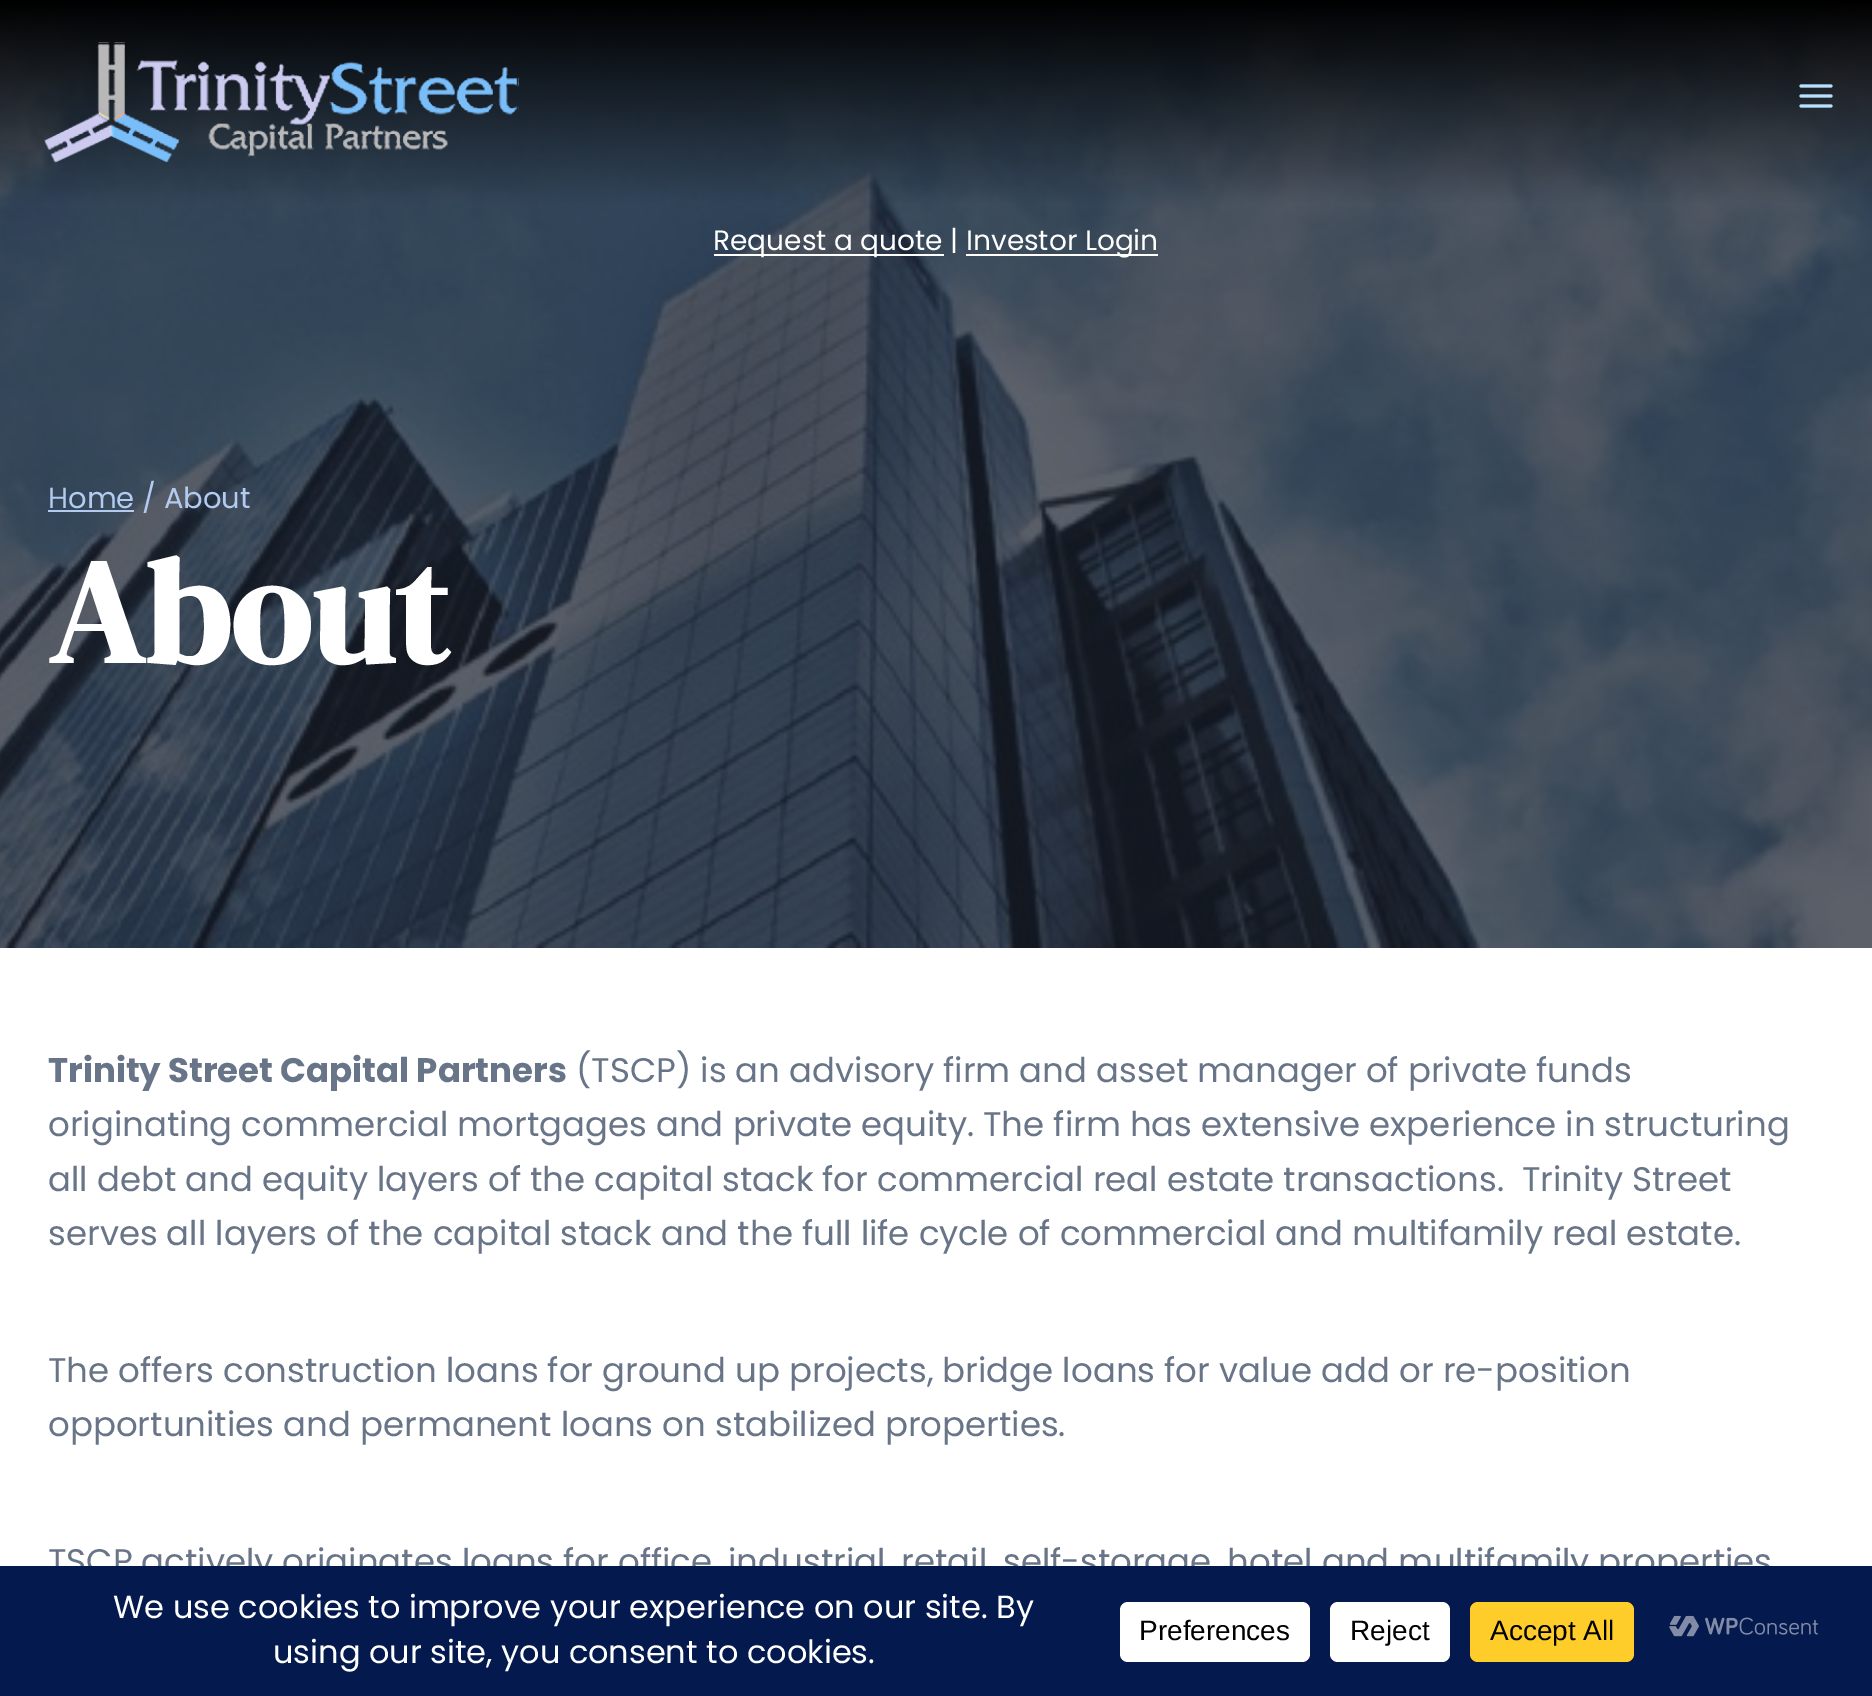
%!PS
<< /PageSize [1872 1696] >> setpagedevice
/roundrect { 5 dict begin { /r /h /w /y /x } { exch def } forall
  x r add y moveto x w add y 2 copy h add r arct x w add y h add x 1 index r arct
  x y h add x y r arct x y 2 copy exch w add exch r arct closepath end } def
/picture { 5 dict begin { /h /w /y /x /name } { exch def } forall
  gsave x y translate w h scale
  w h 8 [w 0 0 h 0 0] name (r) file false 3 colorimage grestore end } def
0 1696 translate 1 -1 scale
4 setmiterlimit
1 setgray
0 0 1872 1696 rectfill
(img3.rgb) 0 0 1872 948 picture
(img1.rgb) 44 42 475 121 picture
(img2.rgb) 1799 84 34 24 picture
714 254 230 2 rectfill
/Poppins-Regular [28 0 0 -28 0 0] selectfont
713 250 moveto (Request a quote |) show
966 254 192 2 rectfill
966 250 moveto (Investor Login) show
0.702 0.796 0.941 setrgbcolor
48 510 86 2 rectfill
/Poppins-Regular [29 0 0 -29 0 0] selectfont
48 508 moveto (Home / About) show
/DMSerifDisplay-Bold [148 0 0 -148 0 0] selectfont
1 setgray
48 663 moveto (About) show
/Poppins-Bold [34 0 0 -34 0 0] selectfont
0.408 0.455 0.529 setrgbcolor
48 1082 moveto (Trinity Street Capital Partners) show
/Poppins-Regular [34 0 0 -34 0 0] selectfont
576 1082 moveto (\(TSCP\) is an advisory firm and asset manager of private funds) show
48 1136 moveto (originating commercial mortgages and private equity. The firm has extensive experience in structuring) show
48 1191 moveto (all debt and equity layers of the capital stack for commercial real estate transactions.  Trinity Street) show
48 1245 moveto (serves all layers of the capital stack and the full life cycle of commercial and multifamily real estate.) show
48 1382 moveto (The offers construction loans for ground up projects, bridge loans for value add or re-position) show
48 1436 moveto (opportunities and permanent loans on stabilized properties.) show
48 1573 moveto (TSCP actively originates loans for office, industrial, retail, self-storage, hotel and multifamily properties) show
0.016 0.098 0.306 setrgbcolor
0 1566 1872 130 rectfill
/Poppins-Regular [32 0 0 -32 0 0] selectfont
1 setgray
113 1618 moveto (We use cookies to improve your experience on our site. By) show
273 1663 moveto (using our site, you consent to cookies.) show
1120 1602 190 60 8 roundrect fill
/LiberationSans-Regular [28 0 0 -28 0 0] selectfont
0 setgray
1139 1640 moveto (Preferences) show
1 setgray
1330 1602 120 60 8 roundrect fill
0 setgray
1350 1640 moveto (Reject) show
1 0.804 0.165 setrgbcolor
1470 1602 164 60 8 roundrect fill
0 setgray
1490 1640 moveto (Accept All) show
(img4.rgb) 1669 1615 149 22 picture
showpage
